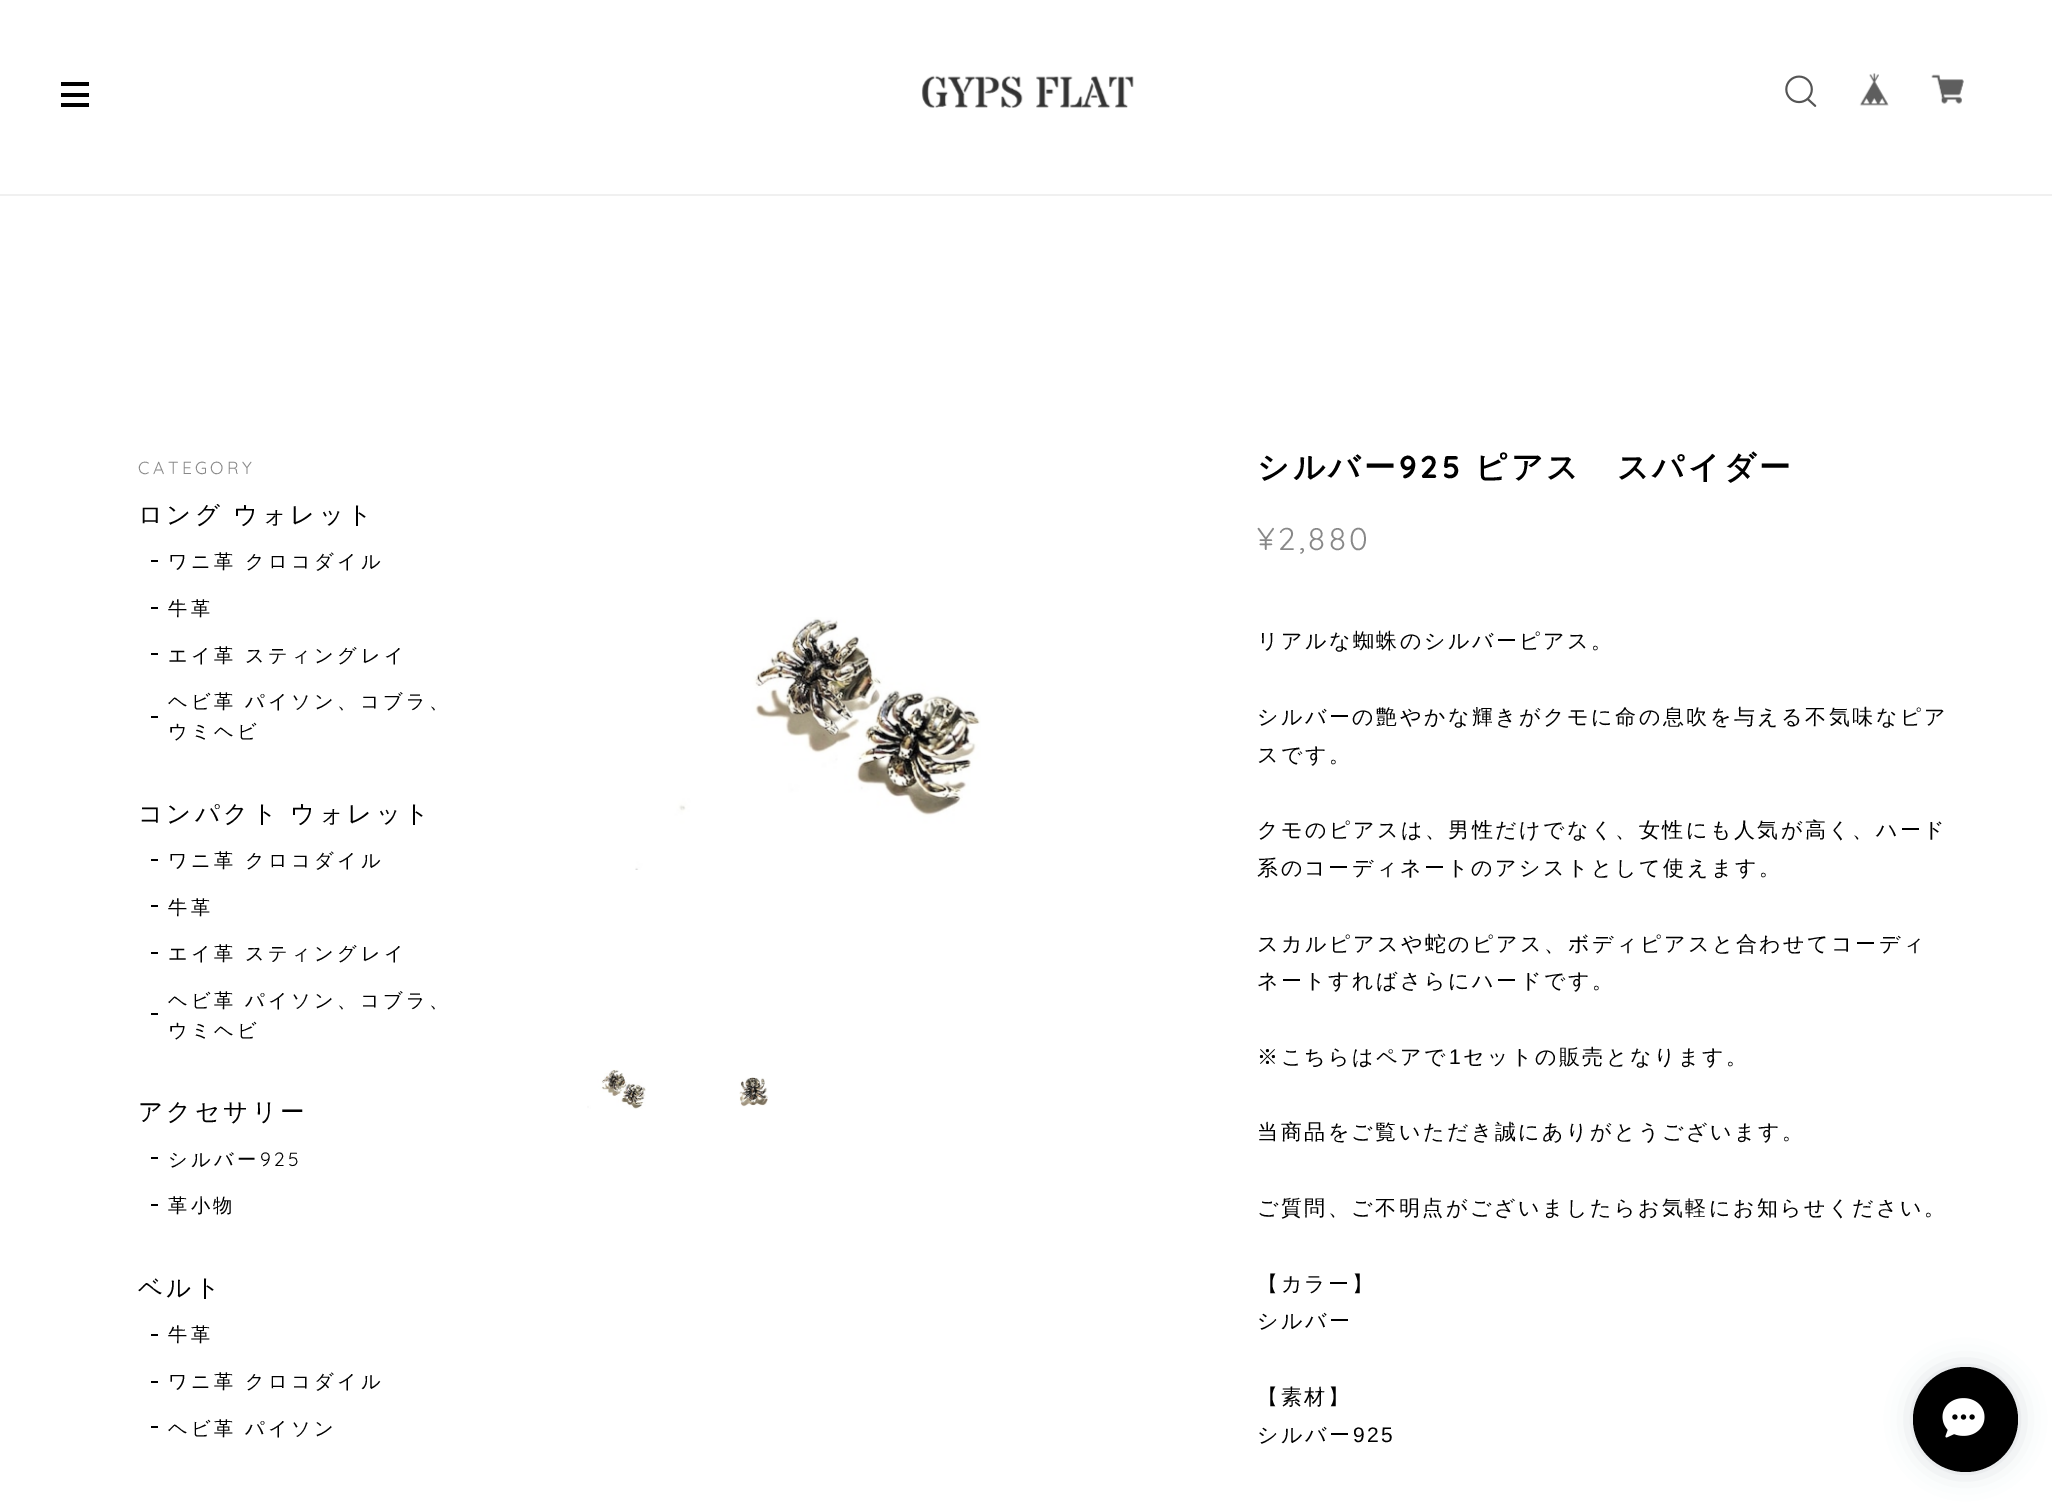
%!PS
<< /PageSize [2052 1506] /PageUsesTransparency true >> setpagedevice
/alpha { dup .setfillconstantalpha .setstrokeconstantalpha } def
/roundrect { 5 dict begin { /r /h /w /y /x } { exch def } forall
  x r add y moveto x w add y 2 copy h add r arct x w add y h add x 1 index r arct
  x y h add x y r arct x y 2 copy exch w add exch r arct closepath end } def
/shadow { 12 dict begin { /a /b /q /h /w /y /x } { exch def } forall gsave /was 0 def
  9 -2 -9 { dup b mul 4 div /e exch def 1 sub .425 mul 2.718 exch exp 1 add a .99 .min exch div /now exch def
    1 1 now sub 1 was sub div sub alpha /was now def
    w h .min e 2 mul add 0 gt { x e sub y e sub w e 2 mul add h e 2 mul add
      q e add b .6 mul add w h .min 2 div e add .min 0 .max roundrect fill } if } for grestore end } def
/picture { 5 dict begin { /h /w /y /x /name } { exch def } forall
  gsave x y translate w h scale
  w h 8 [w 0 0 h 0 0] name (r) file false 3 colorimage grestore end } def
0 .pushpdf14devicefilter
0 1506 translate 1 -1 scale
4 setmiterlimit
1 setgray
0 0 2052 1506 rectfill
0.941 setgray
0 194 2052 2 rectfill
0 setgray
61 82 28 4 rectfill
61 93 28 4 rectfill
61 103 28 4 rectfill
(img1.rgb) 921 75 213 33 picture
(img2.rgb) 1785 75 32 32 picture
(img3.rgb) 1859 73 30 33 picture
(img4.rgb) 1931 74 33 30 picture
/Quicksand-Regular [17.5 0 0 -17.5 0 0] selectfont
0.533 setgray
138 474 moveto 3.4 0 (CATEGORY) ashow
/WenQuanYiZenHei-Medium [24.5 0 0 -24.5 0 0] selectfont
0 setgray
138 523 moveto -1 0 32 3.4 0 (ロング ウォレット) awidthshow
151 560 7 2 rectfill
/WenQuanYiZenHei-Medium [19.25 0 0 -19.25 0 0] selectfont
168 568 moveto -1 0 32 3.4 0 (ワニ革 クロコダイル) awidthshow
151 607 7 2 rectfill
168 615 moveto 3.4 0 (牛革) ashow
151 653 7 2 rectfill
168 662 moveto -1 0 32 3.4 0 (エイ革 スティングレイ) awidthshow
168 708 moveto -1 0 32 3.4 0 (ヘビ革 パイソン、コブラ、) awidthshow
151 716 7 2 rectfill
168 738 moveto 3.4 0 (ウミヘビ) ashow
/WenQuanYiZenHei-Medium [24.5 0 0 -24.5 0 0] selectfont
138 822 moveto -1 0 32 3.4 0 (コンパクト ウォレット) awidthshow
151 859 7 2 rectfill
/WenQuanYiZenHei-Medium [19.25 0 0 -19.25 0 0] selectfont
168 867 moveto -1 0 32 3.4 0 (ワニ革 クロコダイル) awidthshow
151 905 7 2 rectfill
168 914 moveto 3.4 0 (牛革) ashow
151 952 7 2 rectfill
168 960 moveto -1 0 32 3.4 0 (エイ革 スティングレイ) awidthshow
168 1007 moveto -1 0 32 3.4 0 (ヘビ革 パイソン、コブラ、) awidthshow
151 1013 7 2 rectfill
168 1037 moveto 3.4 0 (ウミヘビ) ashow
/WenQuanYiZenHei-Medium [24.5 0 0 -24.5 0 0] selectfont
138 1120 moveto 3.4 0 (アクセサリー) ashow
151 1157 7 2 rectfill
/WenQuanYiZenHei-Medium [19.25 0 0 -19.25 0 0] selectfont
168 1166 moveto 3.4 0 (シルバー) ashow
/Quicksand-Regular [19.25 0 0 -19.25 0 0] selectfont
260 1166 moveto 3.4 0 (925) ashow
151 1204 7 2 rectfill
/WenQuanYiZenHei-Medium [19.25 0 0 -19.25 0 0] selectfont
168 1212 moveto 3.4 0 (革小物) ashow
/WenQuanYiZenHei-Medium [24.5 0 0 -24.5 0 0] selectfont
138 1296 moveto 3.4 0 (ベルト) ashow
151 1334 7 2 rectfill
/WenQuanYiZenHei-Medium [19.25 0 0 -19.25 0 0] selectfont
168 1341 moveto 3.4 0 (牛革) ashow
151 1381 7 2 rectfill
168 1388 moveto -1 0 32 3.4 0 (ワニ革 クロコダイル) awidthshow
151 1426 7 2 rectfill
168 1435 moveto -1 0 32 3.4 0 (ヘビ革 パイソン) awidthshow
(img5.rgb) 635 617 346 253 picture
(img6.rgb) 587 1069 59 40 picture
(img7.rgb) 739 1077 29 30 picture
/WenQuanYiZenHei-Bold [31.5 0 0 -31.5 0 0] selectfont
1257 478 moveto 3.4 0 (シルバー) ashow
/Quicksand-Bold [31.5 0 0 -31.5 0 0] selectfont
1399 478 moveto 3.4 0 (925) ashow
/WenQuanYiZenHei-Bold [31.5 0 0 -31.5 0 0] selectfont
1475 478 moveto 3.4 0 (ピアス　スパイダー) ashow
/Quicksand-Regular [31.5 0 0 -31.5 0 0] selectfont
0.533 setgray
1257 550 moveto 3.4 0 (¥2,880) ashow
/WenQuanYiZenHei-Medium [21 0 0 -21 0 0] selectfont
0 setgray
1257 648 moveto 2.5 0 (リアルな蜘蛛のシルバーピアス。) ashow
1257 724 moveto 2.5 0 (シルバーの艶やかな輝きがクモに命の息吹を与える不気味なピア) ashow
1257 762 moveto 2.5 0 (スです。) ashow
1257 837 moveto 2.5 0 (クモのピアスは、男性だけでなく、女性にも人気が高く、ハード) ashow
1257 875 moveto 2.5 0 (系のコーディネートのアシストとして使えます。) ashow
1257 951 moveto 2.5 0 (スカルピアスや蛇のピアス、ボディピアスと合わせてコーディ) ashow
1257 988 moveto 2.5 0 (ネートすればさらにハードです。) ashow
1257 1064 moveto 2.5 0 (※こちらはペアで) ashow
/LiberationSans-Regular [21 0 0 -21 0 0] selectfont
1449 1064 moveto 2.5 0 (1) ashow
/WenQuanYiZenHei-Medium [21 0 0 -21 0 0] selectfont
1463 1064 moveto 2.5 0 (セットの販売となります。) ashow
1257 1139 moveto 2.5 0 (当商品をご覧いただき誠にありがとうございます。) ashow
1257 1215 moveto 2.5 0 (ご質問、ご不明点がございましたらお気軽にお知らせください。) ashow
1257 1291 moveto 2.5 0 (【カラー】) ashow
1257 1328 moveto 2.5 0 (シルバー) ashow
1257 1404 moveto 2.5 0 (【素材】) ashow
1257 1442 moveto 2.5 0 (シルバー) ashow
/LiberationSans-Regular [21 0 0 -21 0 0] selectfont
1353 1442 moveto 2.5 0 (925) ashow
0.2 0.259 0.345 setrgbcolor
1913 1367 105 105 52.5 13 0.2 shadow
0 setgray
newpath 1965.5 1419.5 52.5 0 360 arc closepath fill
(img8.rgb) 1942 1398 43 40 picture
.poppdf14devicefilter showpage
